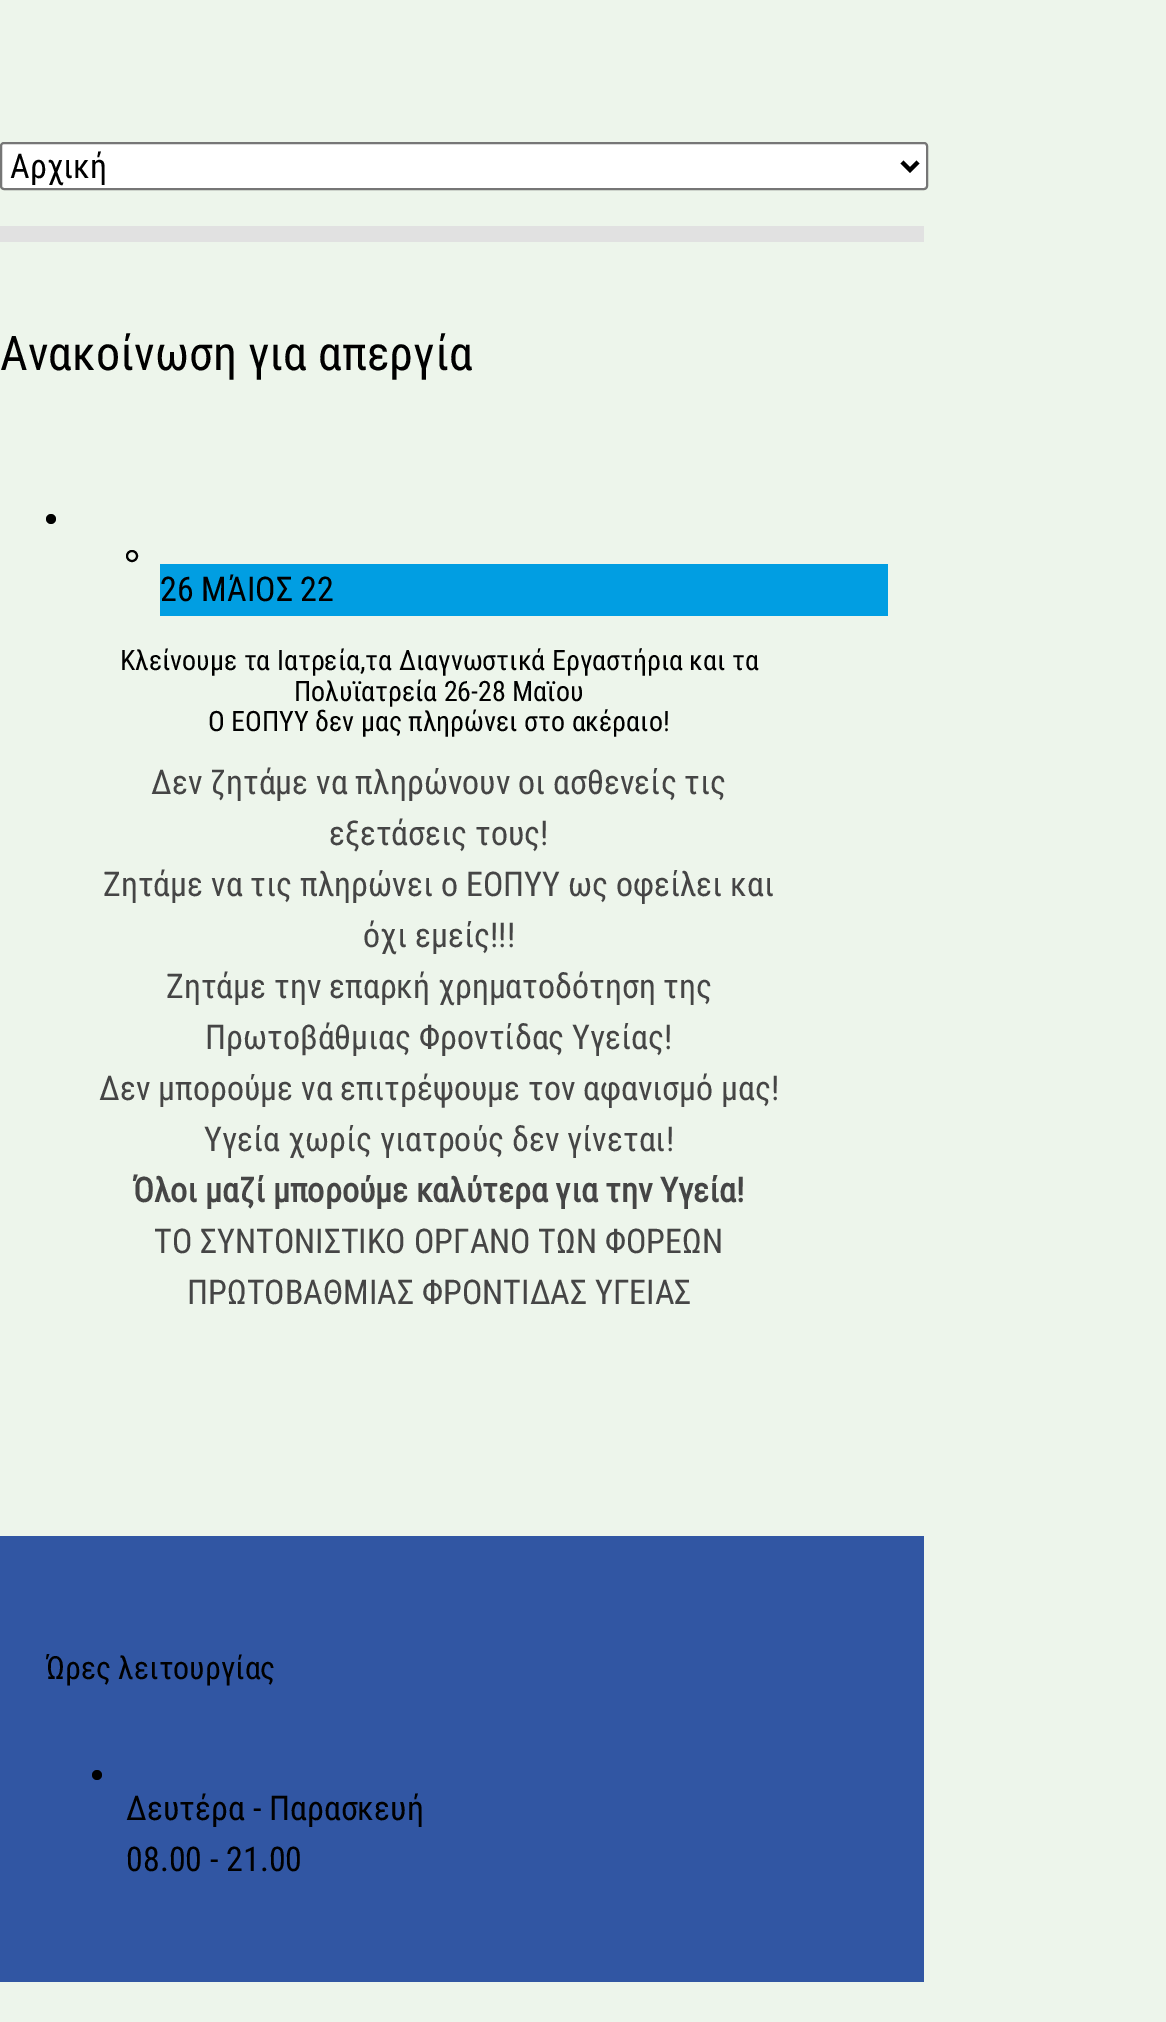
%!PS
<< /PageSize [1166 2022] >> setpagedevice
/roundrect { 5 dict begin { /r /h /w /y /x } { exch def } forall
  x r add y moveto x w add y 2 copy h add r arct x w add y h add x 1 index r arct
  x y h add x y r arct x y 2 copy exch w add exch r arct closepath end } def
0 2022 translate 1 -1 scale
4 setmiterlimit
0.929 0.961 0.922 setrgbcolor
0 0 1166 2022 rectfill
1 setgray
1 143 926 46 3 roundrect gsave fill grestore
0.463 setgray
2 setlinewidth
stroke
0 setgray
4 setlinewidth
newpath 902 162 moveto 910 170 lineto 918 162 lineto stroke
/RobotoCondensed-Regular [34 0 0 -34 0 0] selectfont
10 178 moveto (Αρχική) show
0.882 setgray
0 226 924 16 rectfill
/RobotoCondensed-Regular [48 0 0 -48 0 0] selectfont
0 setgray
0 370 moveto (Ανακοίνωση για απεργία) show
newpath 51 519 5 0 360 arc closepath fill
2 setlinewidth
newpath 132 556 5 0 360 arc closepath stroke
0.004 0.62 0.886 setrgbcolor
160 564 728 52 rectfill
/RobotoCondensed-Regular [34 0 0 -34 0 0] selectfont
0 setgray
160 601 moveto (26 ΜΆΙΟΣ 22) show
/RobotoCondensed-Regular [28 0 0 -28 0 0] selectfont
120 670 moveto (Κλείνουμε τα Ιατρεία,τα Διαγνωστικά Εργαστήρια και τα) show
294 701 moveto (Πολυϊατρεία 26-28 Μαϊου) show
208 731 moveto (Ο ΕΟΠΥΥ δεν μας πληρώνει στο ακέραιο!) show
/RobotoCondensed-Regular [34 0 0 -34 0 0] selectfont
0.271 setgray
151 794 moveto (Δεν ζητάμε να πληρώνουν οι ασθενείς τις) show
329 845 moveto (εξετάσεις τους!) show
103 896 moveto (Ζητάμε να τις πληρώνει ο ΕΟΠΥΥ ως οφείλει και) show
363 947 moveto (όχι εμείς!!!) show
166 998 moveto (Ζητάμε την επαρκή χρηματοδότηση της) show
205 1049 moveto (Πρωτοβάθμιας Φροντίδας Υγείας!) show
99 1100 moveto (Δεν μπορούμε να επιτρέψουμε τον αφανισμό μας!) show
204 1151 moveto (Υγεία χωρίς γιατρούς δεν γίνεται!) show
/RobotoCondensed-Bold [34 0 0 -34 0 0] selectfont
133 1202 moveto (Όλοι μαζί μπορούμε καλύτερα για την Υγεία!) show
/RobotoCondensed-Regular [34 0 0 -34 0 0] selectfont
154 1253 moveto (ΤΟ ΣΥΝΤΟΝΙΣΤΙΚΟ ΟΡΓΑΝΟ ΤΩΝ ΦΟΡΕΩΝ) show
187 1304 moveto (ΠΡΩΤΟΒΑΘΜΙΑΣ ΦΡΟΝΤΙΔΑΣ ΥΓΕΙΑΣ) show
0.192 0.337 0.639 setrgbcolor
0 1536 924 446 rectfill
/RobotoCondensed-Regular [32 0 0 -32 0 0] selectfont
0 setgray
46 1679 moveto (Ώρες λειτουργίας) show
newpath 97 1775 5 0 360 arc closepath fill
/RobotoCondensed-Regular [34 0 0 -34 0 0] selectfont
126 1820 moveto (Δευτέρα - Παρασκευή) show
126 1871 moveto (08.00 - 21.00) show
showpage
